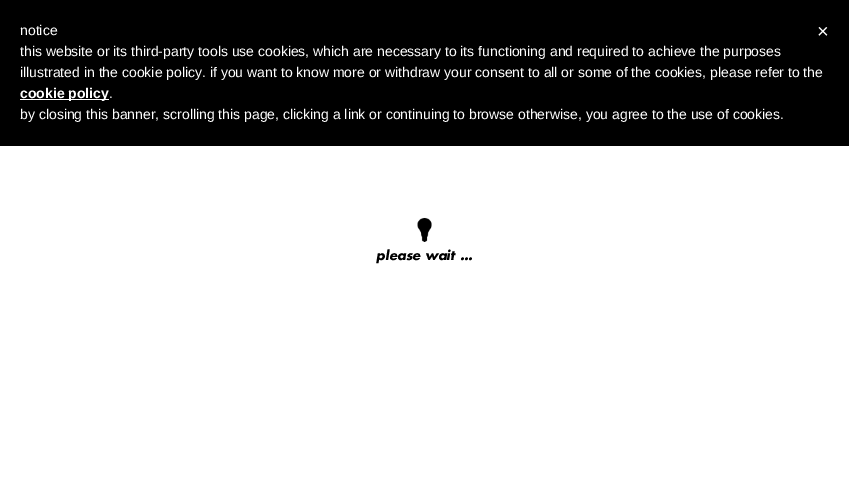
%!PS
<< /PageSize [849 481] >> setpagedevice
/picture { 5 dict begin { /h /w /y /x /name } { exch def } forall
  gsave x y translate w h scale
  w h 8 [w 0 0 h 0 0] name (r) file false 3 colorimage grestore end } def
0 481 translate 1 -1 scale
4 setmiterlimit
1 setgray
0 0 849 481 rectfill
0 setgray
0 0 849 146 rectfill
/LiberationSans-Regular [14 0 0 -14 0 0] selectfont
1 setgray
20 35 moveto (notice) show
20 56 moveto (this website or its third-party tools use cookies, which are necessary to its functioning and required to achieve the purposes) show
20 77 moveto (illustrated in the cookie policy. if you want to know more or withdraw your consent to all or some of the cookies, please refer to the) show
20 99 89 1 rectfill
/LiberationSans-Bold [14 0 0 -14 0 0] selectfont
20 98 moveto (cookie policy) show
/LiberationSans-Regular [14 0 0 -14 0 0] selectfont
109 98 moveto (.) show
20 119 moveto (by closing this banner, scrolling this page, clicking a link or continuing to browse otherwise, you agree to the use of cookies.) show
/LiberationSans-Regular [20 0 0 -20 0 0] selectfont
817 38 moveto (×) show
(img1.rgb) 417 217 15 25 picture
/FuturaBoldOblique-Bold [13 0 0 -13 0 0] selectfont
0 setgray
376 260 moveto (please wait ...) show
showpage
